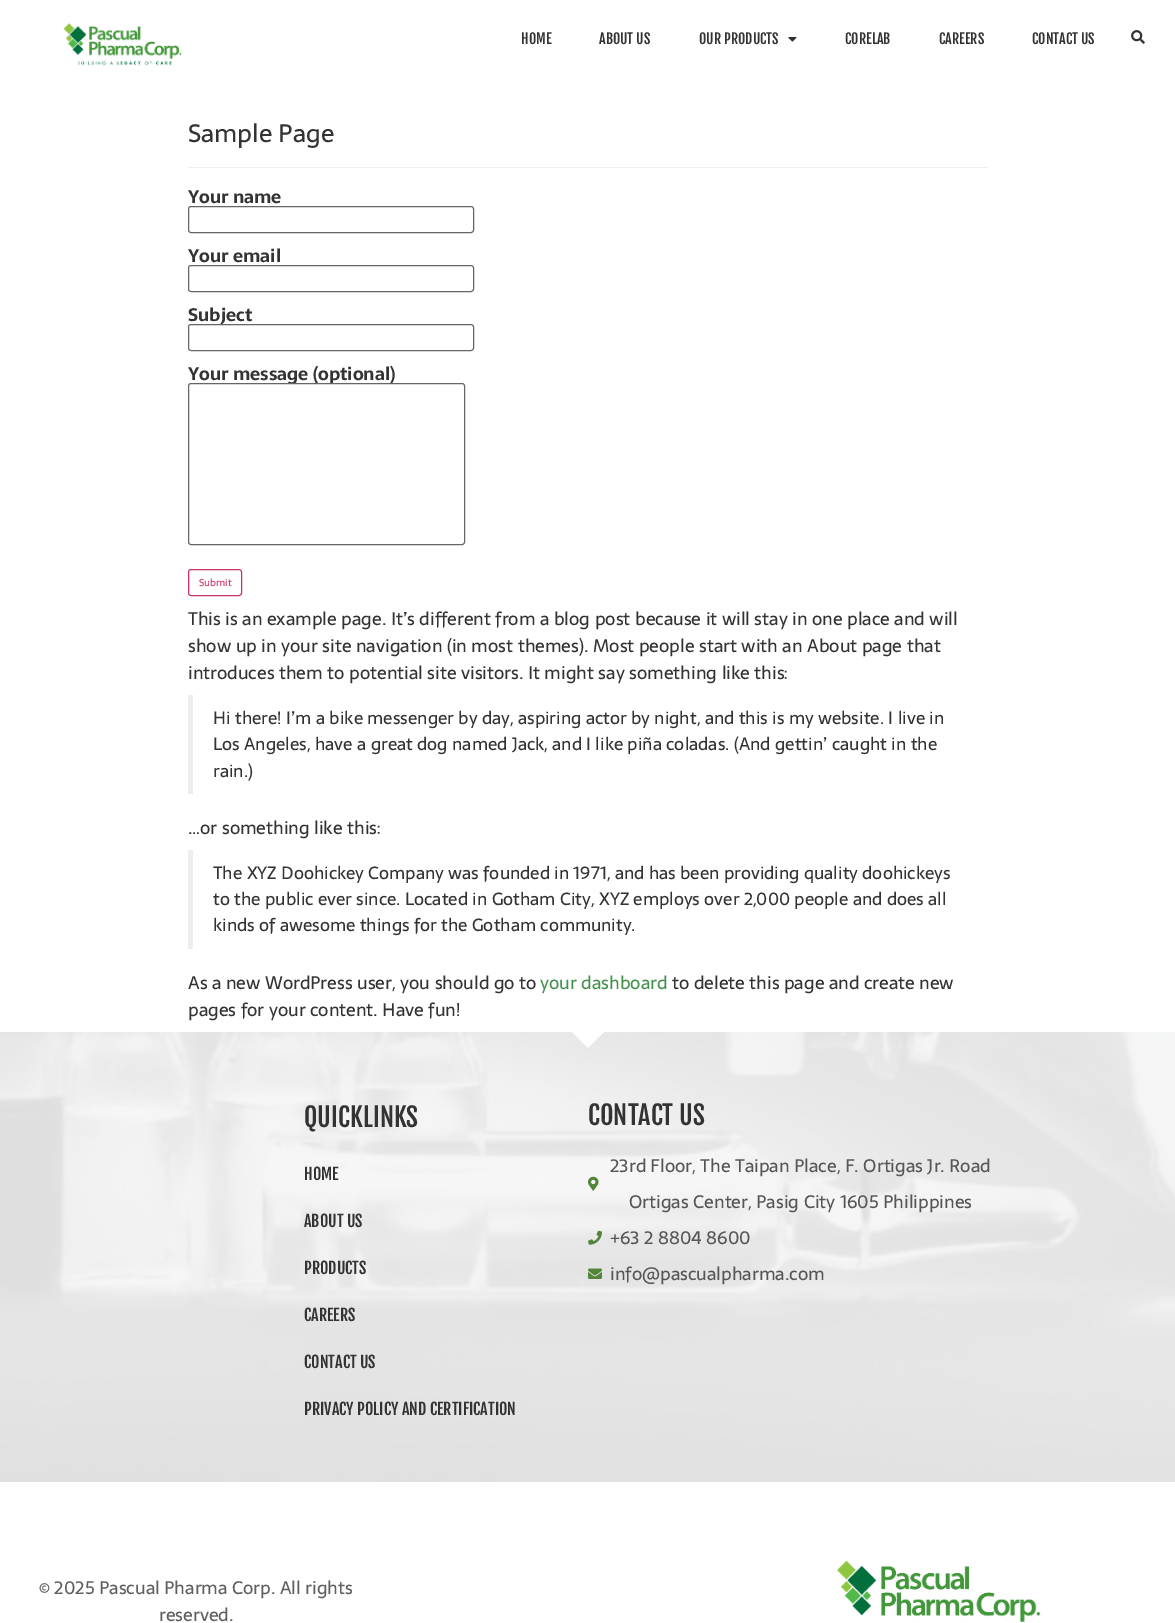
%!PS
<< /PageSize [1175 1623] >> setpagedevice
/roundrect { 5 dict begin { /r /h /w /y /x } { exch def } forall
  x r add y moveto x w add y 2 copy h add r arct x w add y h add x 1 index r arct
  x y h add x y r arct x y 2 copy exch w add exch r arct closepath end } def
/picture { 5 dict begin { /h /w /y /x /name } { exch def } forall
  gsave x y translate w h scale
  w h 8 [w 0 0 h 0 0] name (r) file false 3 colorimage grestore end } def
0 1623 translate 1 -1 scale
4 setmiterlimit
1 setgray
0 0 1175 1623 rectfill
(img1.rgb) 63 23 119 43 picture
/FjallaOne-Regular [14 0 0 -14 0 0] selectfont
0.2 setgray
521 44 moveto (HOME) show
599 44 moveto (ABOUT US) show
699 44 moveto (OUR PRODUCTS) show
(img2.rgb) 788 37 9 5 picture
845 44 moveto (CORELAB) show
939 44 moveto (CAREERS) show
1032 44 moveto (CONTACT US) show
(img3.rgb) 1131 30 14 14 picture
0.933 setgray
188 167 800 1 rectfill
/Sarala-Regular [25 0 0 -25 0 0] selectfont
0.2 setgray
188 142 moveto (Sample Page) show
/Sarala-Bold [18 0 0 -18 0 0] selectfont
188 203 moveto (Your name) show
0.4 setgray
188.5 206.5 285 26 2.5 roundrect stroke
0.2 setgray
188 262 moveto (Your email) show
0.4 setgray
188.5 265.5 285 26 2.5 roundrect stroke
0.2 setgray
188 321 moveto (Subject) show
1 setgray
188.5 324.5 285 26 2.5 roundrect gsave fill grestore
0.4 setgray
stroke
0.2 setgray
188 380 moveto (Your message \(optional\)) show
1 setgray
188.5 383.5 276 161 2.5 roundrect gsave fill grestore
0.4 setgray
stroke
0.8 0.2 0.4 setrgbcolor
188.5 569.5 53 26 2.5 roundrect stroke
/Sarala-Regular [10 0 0 -10 0 0] selectfont
199 586 moveto (Submit) show
/Sarala-Regular [18 0 0 -18 0 0] selectfont
0.2 setgray
188 625 moveto (This is an example page. It’s different from a blog post because it will stay in one place and will) show
188 652 moveto (show up in your site navigation \(in most themes\). Most people start with an About page that) show
188 679 moveto (introduces them to potential site visitors. It might say something like this:) show
0.933 setgray
188 695 5 99 rectfill
/Sarala-Regular [17.5 0 0 -17.5 0 0] selectfont
0.2 setgray
213 724 moveto (Hi there! I’m a bike messenger by day, aspiring actor by night, and this is my website. I live in) show
213 750 moveto (Los Angeles, have a great dog named Jack, and I like piña coladas. \(And gettin’ caught in the) show
213 777 moveto (rain.\)) show
/Sarala-Regular [18 0 0 -18 0 0] selectfont
188 834 moveto (…or something like this:) show
0.933 setgray
188 850 5 99 rectfill
/Sarala-Regular [17.5 0 0 -17.5 0 0] selectfont
0.2 setgray
213 879 moveto (The XYZ Doohickey Company was founded in 1971, and has been providing quality doohickeys) show
213 905 moveto (to the public ever since. Located in Gotham City, XYZ employs over 2,000 people and does all) show
213 931 moveto (kinds of awesome things for the Gotham community.) show
/Sarala-Regular [18 0 0 -18 0 0] selectfont
188 989 moveto (As a new WordPress user, you should go to) show
0.275 0.569 0.314 setrgbcolor
540 989 moveto (your dashboard) show
0.2 setgray
672 989 moveto (to delete this page and create new) show
188 1016 moveto (pages for your content. Have fun!) show
(img4.rgb) 0 1032 1175 450 picture
1 setgray
newpath 588 1048 moveto 571 1031 lineto 605 1031 lineto closepath fill
/FjallaOne-Regular [26 0 0 -26 0 0] selectfont
0.2 setgray
304 1127 moveto (QUICKLINKS) show
/FjallaOne-Regular [16 0 0 -16 0 0] selectfont
304 1180 moveto (HOME) show
304 1227 moveto (ABOUT US) show
304 1274 moveto (PRODUCTS) show
304 1321 moveto (CAREERS) show
304 1368 moveto (CONTACT US) show
304 1415 moveto (PRIVACY POLICY AND CERTIFICATION) show
/FjallaOne-Regular [26 0 0 -26 0 0] selectfont
588 1125 moveto (CONTACT US) show
(img5.rgb) 588 1176 11 15 picture
/Sarala-Regular [18 0 0 -18 0 0] selectfont
0.337 setgray
610 1172 moveto (23rd Floor, The Taipan Place, F. Ortigas Jr. Road) show
629 1208 moveto (Ortigas Center, Pasig City 1605 Philippines) show
(img6.rgb) 588 1230 14 15 picture
610 1244 moveto (+63 2 8804 8600) show
(img7.rgb) 588 1268 14 11 picture
610 1280 moveto (info@pascualpharma.com) show
0.376 0.369 0.369 setrgbcolor
39 1594 moveto (© 2025 Pascual Pharma Corp. All rights) show
159 1621 moveto (reserved.) show
(img8.rgb) 837 1560 204 62 picture
showpage
